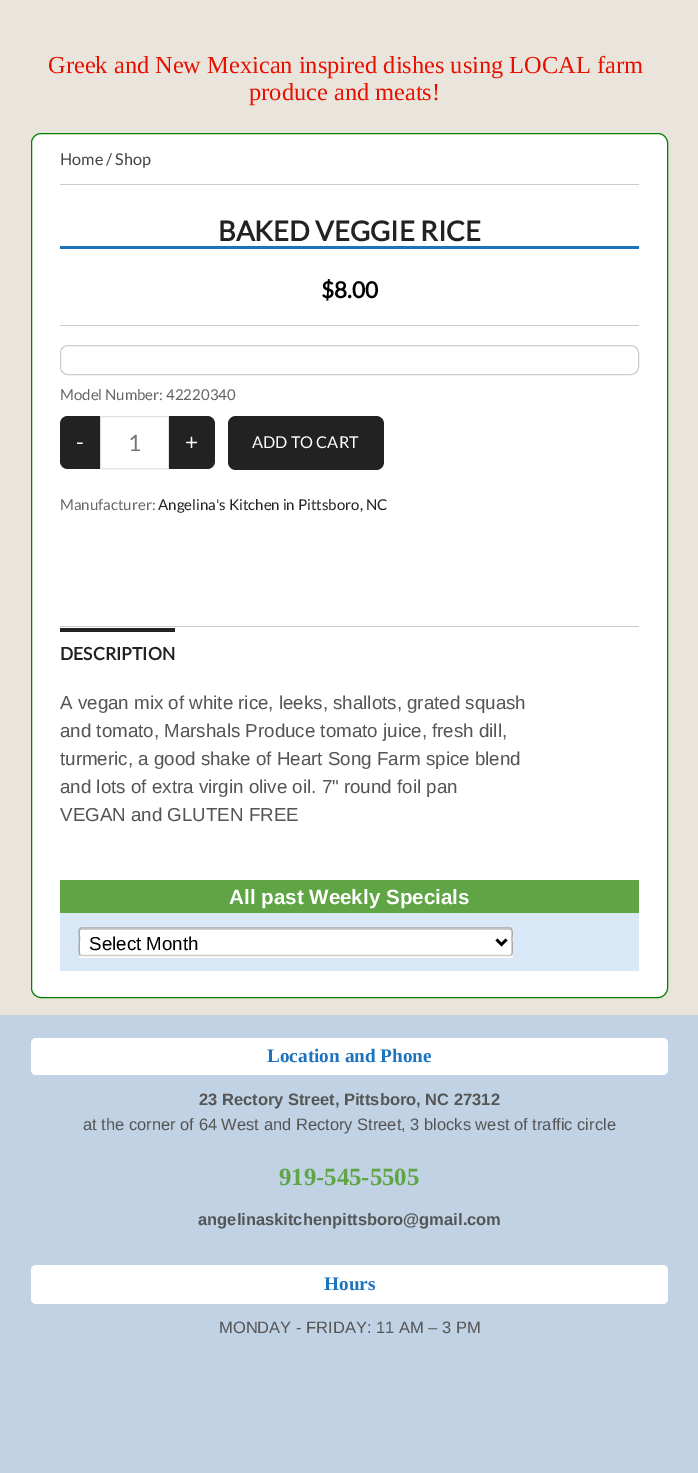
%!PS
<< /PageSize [698 1473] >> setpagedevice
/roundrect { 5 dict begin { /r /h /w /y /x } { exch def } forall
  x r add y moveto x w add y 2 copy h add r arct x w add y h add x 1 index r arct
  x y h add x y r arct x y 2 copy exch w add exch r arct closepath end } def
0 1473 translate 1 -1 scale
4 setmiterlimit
0.914 0.898 0.863 setrgbcolor
0 0 698 1473 rectfill
/LiberationSerif-Regular [24.4 0 0 -24.4 0 0] selectfont
0.91 0.059 0 setrgbcolor
48 73 moveto (Greek and New Mexican inspired dishes using LOCAL farm) show
249 100 moveto (produce and meats!) show
1 setgray
31.5 133.5 636 864 9.5 roundrect gsave fill grestore
0 0.502 0 setrgbcolor
stroke
/Lato-Regular [16.25 0 0 -16.25 0 0] selectfont
0.267 setgray
60 165 moveto (Home / Shop) show
0.8 setgray
60 184 579 1 rectfill
60 325 579 1 rectfill
0.118 0.451 0.745 setrgbcolor
60 246 579 3 rectfill
/Lato-Bold [27.5 0 0 -27.5 0 0] selectfont
0.133 setgray
218 241 moveto (BAKED VEGGIE RICE) show
/Lato-Bold [22.5 0 0 -22.5 0 0] selectfont
0 setgray
321 298 moveto ($8.00) show
0.8 setgray
60.5 345.5 578 29 7.5 roundrect stroke
/Lato-Regular [15 0 0 -15 0 0] selectfont
0.4 setgray
60 400 moveto (Model Number: 42220340) show
0.133 setgray
newpath 68 416 moveto 100 416 lineto 100 469 lineto 68 469 lineto 63.5 469 60 465.5 60 461 curveto 60 424 lineto 60 419.5 63.5 416 68 416 curveto closepath fill
/Lato-Regular [22.5 0 0 -22.5 0 0] selectfont
1 setgray
76 450 moveto (-) show
0.882 setgray
100.5 416.5 68 52 rectstroke
0.467 setgray
128 451 moveto (1) show
0.133 setgray
newpath 169 416 moveto 207 416 lineto 211.5 416 215 419.5 215 424 curveto 215 461 lineto 215 465.5 211.5 469 207 469 curveto 169 469 lineto closepath fill
1 setgray
185 450 moveto (+) show
0.133 setgray
228 416 156 54 8 roundrect fill
/Lato-Regular [16.25 0 0 -16.25 0 0] selectfont
1 setgray
252 448 moveto (ADD TO CART) show
/Lato-Regular [15 0 0 -15 0 0] selectfont
0.4 setgray
60 510 moveto (Manufacturer:) show
0.133 setgray
158 510 moveto (Angelina's Kitchen in Pittsboro, NC) show
0.8 setgray
60 626 579 1 rectfill
0.133 setgray
60 628 115 4 rectfill
/Lato-Bold [17.5 0 0 -17.5 0 0] selectfont
60 660 moveto (DESCRIPTION) show
/LiberationSans-Regular [18.75 0 0 -18.75 0 0] selectfont
0.333 setgray
60 709 moveto (A vegan mix of white rice, leeks, shallots, grated squash) show
60 737 moveto (and tomato, Marshals Produce tomato juice, fresh dill,) show
60 765 moveto (turmeric, a good shake of Heart Song Farm spice blend) show
60 793 moveto (and lots of extra virgin olive oil. 7" round foil pan) show
60 821 moveto (VEGAN and GLUTEN FREE) show
0.851 0.91 0.969 setrgbcolor
60 913 579 58 rectfill
0.373 0.647 0.271 setrgbcolor
60 880 579 33 rectfill
/LiberationSans-Bold [20.6 0 0 -20.6 0 0] selectfont
1 setgray
229 904 moveto (All past Weekly Specials) show
newpath 79 955 moveto 79 956 lineto 79 957 80 958 82 958 curveto 510 958 lineto 512 958 513 957 513 956 curveto 513 932 lineto 512 930 lineto 512 954 lineto 512 955 511 956 510 956 curveto 81 956 lineto 80 956 79 956 79 955 curveto closepath fill
79 928 434 28 2.5 roundrect fill
0.8 setgray
newpath 81 930 moveto 510 930 lineto 511 931 lineto 511 929 lineto 296 929 lineto 81 929 lineto 80 930 lineto 80 931 lineto closepath fill
1.2 setlinewidth
newpath 511.5 955 moveto 510 955.5 lineto 81 955.5 lineto 80 955 lineto stroke
0.667 setgray
newpath 80 955 moveto 78.5 953.5 79.5 940.5 79.5 938 curveto 79.5 937 78 928 81 928 curveto 510 928 lineto 513.5 928 512 937 512 938 curveto 512 940.5 513 953.5 511.5 955 curveto stroke
0 setgray
2.5 setlinewidth
newpath 496.5 939.5 moveto 501.5 944.5 lineto 506.5 939.5 lineto stroke
/LiberationSans-Regular [18.75 0 0 -18.75 0 0] selectfont
89 950 moveto (Select Month) show
0.753 0.824 0.89 setrgbcolor
0 1015 698 458 rectfill
1 setgray
31 1038 637 37 5 roundrect fill
/LiberationSerif-Bold [19.25 0 0 -19.25 0 0] selectfont
0.118 0.451 0.745 setrgbcolor
267 1062 moveto (Location and Phone) show
/LiberationSans-Bold [16.5 0 0 -16.5 0 0] selectfont
0.333 setgray
199 1105 moveto (23 Rectory Street, Pittsboro, NC 27312) show
/LiberationSans-Regular [16.5 0 0 -16.5 0 0] selectfont
83 1130 moveto (at the corner of 64 West and Rectory Street, 3 blocks west of traffic circle) show
/LiberationSerif-Bold [24.75 0 0 -24.75 0 0] selectfont
0.373 0.647 0.271 setrgbcolor
279 1185 moveto (919-545-5505) show
/LiberationSans-Bold [16.5 0 0 -16.5 0 0] selectfont
0.333 setgray
198 1225 moveto (angelinaskitchenpittsboro@gmail.com) show
1 setgray
31 1265 637 39 5 roundrect fill
/LiberationSerif-Bold [19.25 0 0 -19.25 0 0] selectfont
0.118 0.451 0.745 setrgbcolor
324 1290 moveto (Hours) show
/LiberationSans-Regular [16.5 0 0 -16.5 0 0] selectfont
0.333 setgray
219 1333 moveto (MONDAY - FRIDAY: 11 AM – 3 PM) show
showpage
